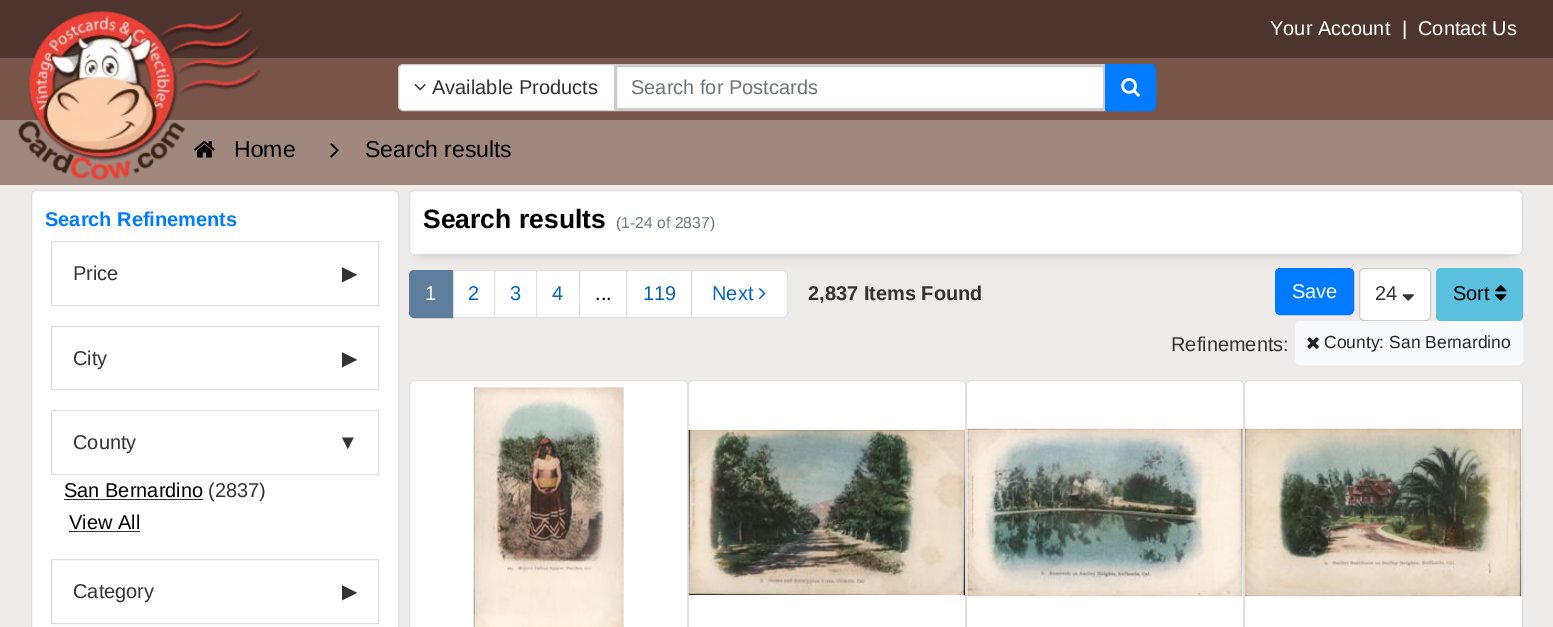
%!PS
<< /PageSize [1553 627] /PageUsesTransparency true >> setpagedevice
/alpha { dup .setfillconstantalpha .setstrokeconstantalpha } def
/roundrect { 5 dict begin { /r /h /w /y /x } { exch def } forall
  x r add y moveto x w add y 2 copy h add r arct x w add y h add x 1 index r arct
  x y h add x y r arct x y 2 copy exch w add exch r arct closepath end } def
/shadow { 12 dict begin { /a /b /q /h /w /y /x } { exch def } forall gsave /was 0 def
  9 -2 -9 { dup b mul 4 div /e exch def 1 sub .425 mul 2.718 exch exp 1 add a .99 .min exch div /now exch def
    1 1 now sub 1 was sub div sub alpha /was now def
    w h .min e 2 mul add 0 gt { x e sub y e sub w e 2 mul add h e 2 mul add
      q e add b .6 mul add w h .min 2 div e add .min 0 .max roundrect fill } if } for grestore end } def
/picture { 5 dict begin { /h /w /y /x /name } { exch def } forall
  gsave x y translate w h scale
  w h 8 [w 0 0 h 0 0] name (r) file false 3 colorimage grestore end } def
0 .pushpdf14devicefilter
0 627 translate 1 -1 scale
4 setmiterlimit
0.631 0.533 0.498 setrgbcolor
0 0 1553 627 rectfill
0.306 0.204 0.18 setrgbcolor
0 0 1553 58 rectfill
/LiberationSans-Regular [20 0 0 -20 0 0] selectfont
1 setgray
1270 35 moveto (Your Account) show
1402 35 moveto (|) show
1418 35 moveto (Contact Us) show
0.475 0.333 0.282 setrgbcolor
0 58 1553 62 rectfill
(img4.rgb) 194 141 21 17 picture
/LiberationSans-Regular [23 0 0 -23 0 0] selectfont
0 setgray
234 157 moveto (Home) show
(img1.rgb) 18 11 243 169 picture
1 setgray
newpath 615.5 65.5 moveto 1104.5 65.5 lineto 1104.5 109.5 lineto 615.5 109.5 lineto closepath gsave fill grestore
0.8 setgray
3 setlinewidth
stroke
1 setgray
newpath 403 64.5 moveto 614.5 64.5 lineto 614.5 110.5 lineto 403 110.5 lineto 400.5 110.5 398.5 108.5 398.5 106 curveto 398.5 69 lineto 398.5 66.5 400.5 64.5 403 64.5 curveto closepath gsave fill grestore
0.8 setgray
1 setlinewidth
stroke
(img2.rgb) 414 83 12 8 picture
/LiberationSans-Regular [20 0 0 -20 0 0] selectfont
0.2 setgray
432 94 moveto (Available Products) show
0.424 0.459 0.49 setrgbcolor
631 94 moveto (Search for Postcards) show
0 0.482 1 setrgbcolor
newpath 1105.5 64.5 moveto 1151 64.5 lineto 1153.5 64.5 1155.5 66.5 1155.5 69 curveto 1155.5 106 lineto 1155.5 108.5 1153.5 110.5 1151 110.5 curveto 1105.5 110.5 lineto closepath gsave fill grestore
stroke
(img3.rgb) 1121 78 19 19 picture
(img5.rgb) 330 142 9 16 picture
/LiberationSans-Regular [23 0 0 -23 0 0] selectfont
0 setgray
365 157 moveto (Search results) show
0.937 0.922 0.914 setrgbcolor
0 185 1553 442 rectfill
1 setgray
31 190 368 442 5 roundrect fill
0.12 alpha
0 setgray
31.5 190.5 367 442 4.5 roundrect stroke
/LiberationSans-Bold [20 0 0 -20 0 0] selectfont
1 alpha
0 0.482 1 setrgbcolor
45 226 moveto (Search Refinements) show
0.875 setgray
51.5 241.5 327 64 rectstroke
/LiberationSans-Regular [20 0 0 -20 0 0] selectfont
0.2 setgray
73 280 moveto (Price) show
/DejaVuSans-Regular [20 0 0 -20 0 0] selectfont
342 280 moveto (▶) show
0.875 setgray
51.5 326.5 327 63 rectstroke
/LiberationSans-Regular [20 0 0 -20 0 0] selectfont
0.2 setgray
73 365 moveto (City) show
/DejaVuSans-Regular [20 0 0 -20 0 0] selectfont
342 365 moveto (▶) show
0.875 setgray
51.5 410.5 327 64 rectstroke
/LiberationSans-Regular [20 0 0 -20 0 0] selectfont
0.2 setgray
73 449 moveto (County) show
338 449 moveto (▼) show
0 setgray
64 497 moveto (San Bernardino) show
0.2 setgray
64 499 139 1 rectfill
208 497 moveto (\(2837\)) show
0 setgray
69 529 moveto (View All) show
0.2 setgray
69 531 71 1 rectfill
0.875 setgray
51.5 559.5 327 64 rectstroke
0.2 setgray
73 598 moveto (Category) show
/DejaVuSans-Regular [20 0 0 -20 0 0] selectfont
342 598 moveto (▶) show
0 setgray
421 215 1089 40 0 6 0.15 shadow
1 setgray
409 190 1114 65 5 roundrect fill
0.12 alpha
0 setgray
409.5 190.5 1113 64 4.5 roundrect stroke
/LiberationSans-Bold [26.5 0 0 -26.5 0 0] selectfont
1 alpha
423 228 moveto (Search results) show
/LiberationSans-Regular [15.75 0 0 -15.75 0 0] selectfont
0.424 0.459 0.49 setrgbcolor
616 228 moveto (\(1-24 of 2837\)) show
1 setgray
453 271 41 46 rectfill
0.871 0.886 0.902 setrgbcolor
451.5 270.5 43 47 rectstroke
0.373 0.494 0.62 setrgbcolor
newpath 414 270.5 moveto 452.5 270.5 lineto 452.5 317.5 lineto 414 317.5 lineto 411.5 317.5 409.5 315.5 409.5 313 curveto 409.5 275 lineto 409.5 272.5 411.5 270.5 414 270.5 curveto closepath gsave fill grestore
stroke
/LiberationSans-Regular [20 0 0 -20 0 0] selectfont
1 setgray
425 300 moveto (1) show
0.008 0.396 0.729 setrgbcolor
468 300 moveto (2) show
1 setgray
495 271 41 46 rectfill
0.871 0.886 0.902 setrgbcolor
494.5 270.5 43 47 rectstroke
0.008 0.396 0.729 setrgbcolor
510 300 moveto (3) show
1 setgray
newpath 536.5 270.5 moveto 579.5 270.5 lineto 579.5 317.5 lineto 536.5 317.5 lineto closepath gsave fill grestore
0.871 0.886 0.902 setrgbcolor
stroke
0.008 0.396 0.729 setrgbcolor
552 300 moveto (4) show
1 setgray
580 271 46 46 rectfill
0.871 0.886 0.902 setrgbcolor
579.5 270.5 48 47 rectstroke
0 setgray
595 300 moveto (...) show
1 setgray
627 271 64 46 rectfill
0.871 0.886 0.902 setrgbcolor
626.5 270.5 66 47 rectstroke
0.008 0.396 0.729 setrgbcolor
643 300 moveto (119) show
1 setgray
newpath 691.5 270.5 moveto 783 270.5 lineto 785.5 270.5 787.5 272.5 787.5 275 curveto 787.5 313 lineto 787.5 315.5 785.5 317.5 783 317.5 curveto 691.5 317.5 lineto closepath gsave fill grestore
0.871 0.886 0.902 setrgbcolor
stroke
0.008 0.396 0.729 setrgbcolor
712 300 moveto (Next) show
(img6.rgb) 758 288 8 12 picture
/LiberationSans-Bold [20 0 0 -20 0 0] selectfont
0.2 setgray
808 300 moveto (2,837 Items Found) show
0 0.482 1 setrgbcolor
1275.5 268.5 78 46 4.5 roundrect gsave fill grestore
stroke
/LiberationSans-Regular [20 0 0 -20 0 0] selectfont
1 setgray
1292 298 moveto (Save) show
1359.5 268.5 71 52 4.5 roundrect gsave fill grestore
0.8 setgray
stroke
0.2 setgray
1375 300 moveto (24) show
(img7.rgb) 1402 294 12 7 picture
0.357 0.753 0.871 setrgbcolor
1436.5 268.5 86 52 4.5 roundrect gsave fill grestore
stroke
0 setgray
1453 300 moveto (Sort) show
(img8.rgb) 1495 285 12 16 picture
0.2 setgray
1171 351 moveto (Refinements:) show
0.973 0.976 0.98 setrgbcolor
1295.5 321.5 227 43 4.5 roundrect gsave fill grestore
stroke
(img9.rgb) 1307 337 12 12 picture
/LiberationSans-Regular [17.5 0 0 -17.5 0 0] selectfont
0.129 0.145 0.161 setrgbcolor
1324 348 moveto (County: San Bernardino) show
1 setgray
409 380 279 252 5 roundrect fill
0.12 alpha
0 setgray
409.5 380.5 278 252 4.5 roundrect stroke
1 alpha
(img10.rgb) 473 387 151 240 picture
1 setgray
688 380 278 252 5 roundrect fill
0.12 alpha
0 setgray
688.5 380.5 277 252 4.5 roundrect stroke
1 alpha
(img11.rgb) 688 430 277 165 picture
1 setgray
966 380 278 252 5 roundrect fill
0.12 alpha
0 setgray
966.5 380.5 277 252 4.5 roundrect stroke
1 alpha
(img12.rgb) 967 428 276 169 picture
1 setgray
1244 380 279 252 5 roundrect fill
0.12 alpha
0 setgray
1244.5 380.5 278 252 4.5 roundrect stroke
1 alpha
(img13.rgb) 1245 428 277 169 picture
.poppdf14devicefilter showpage
